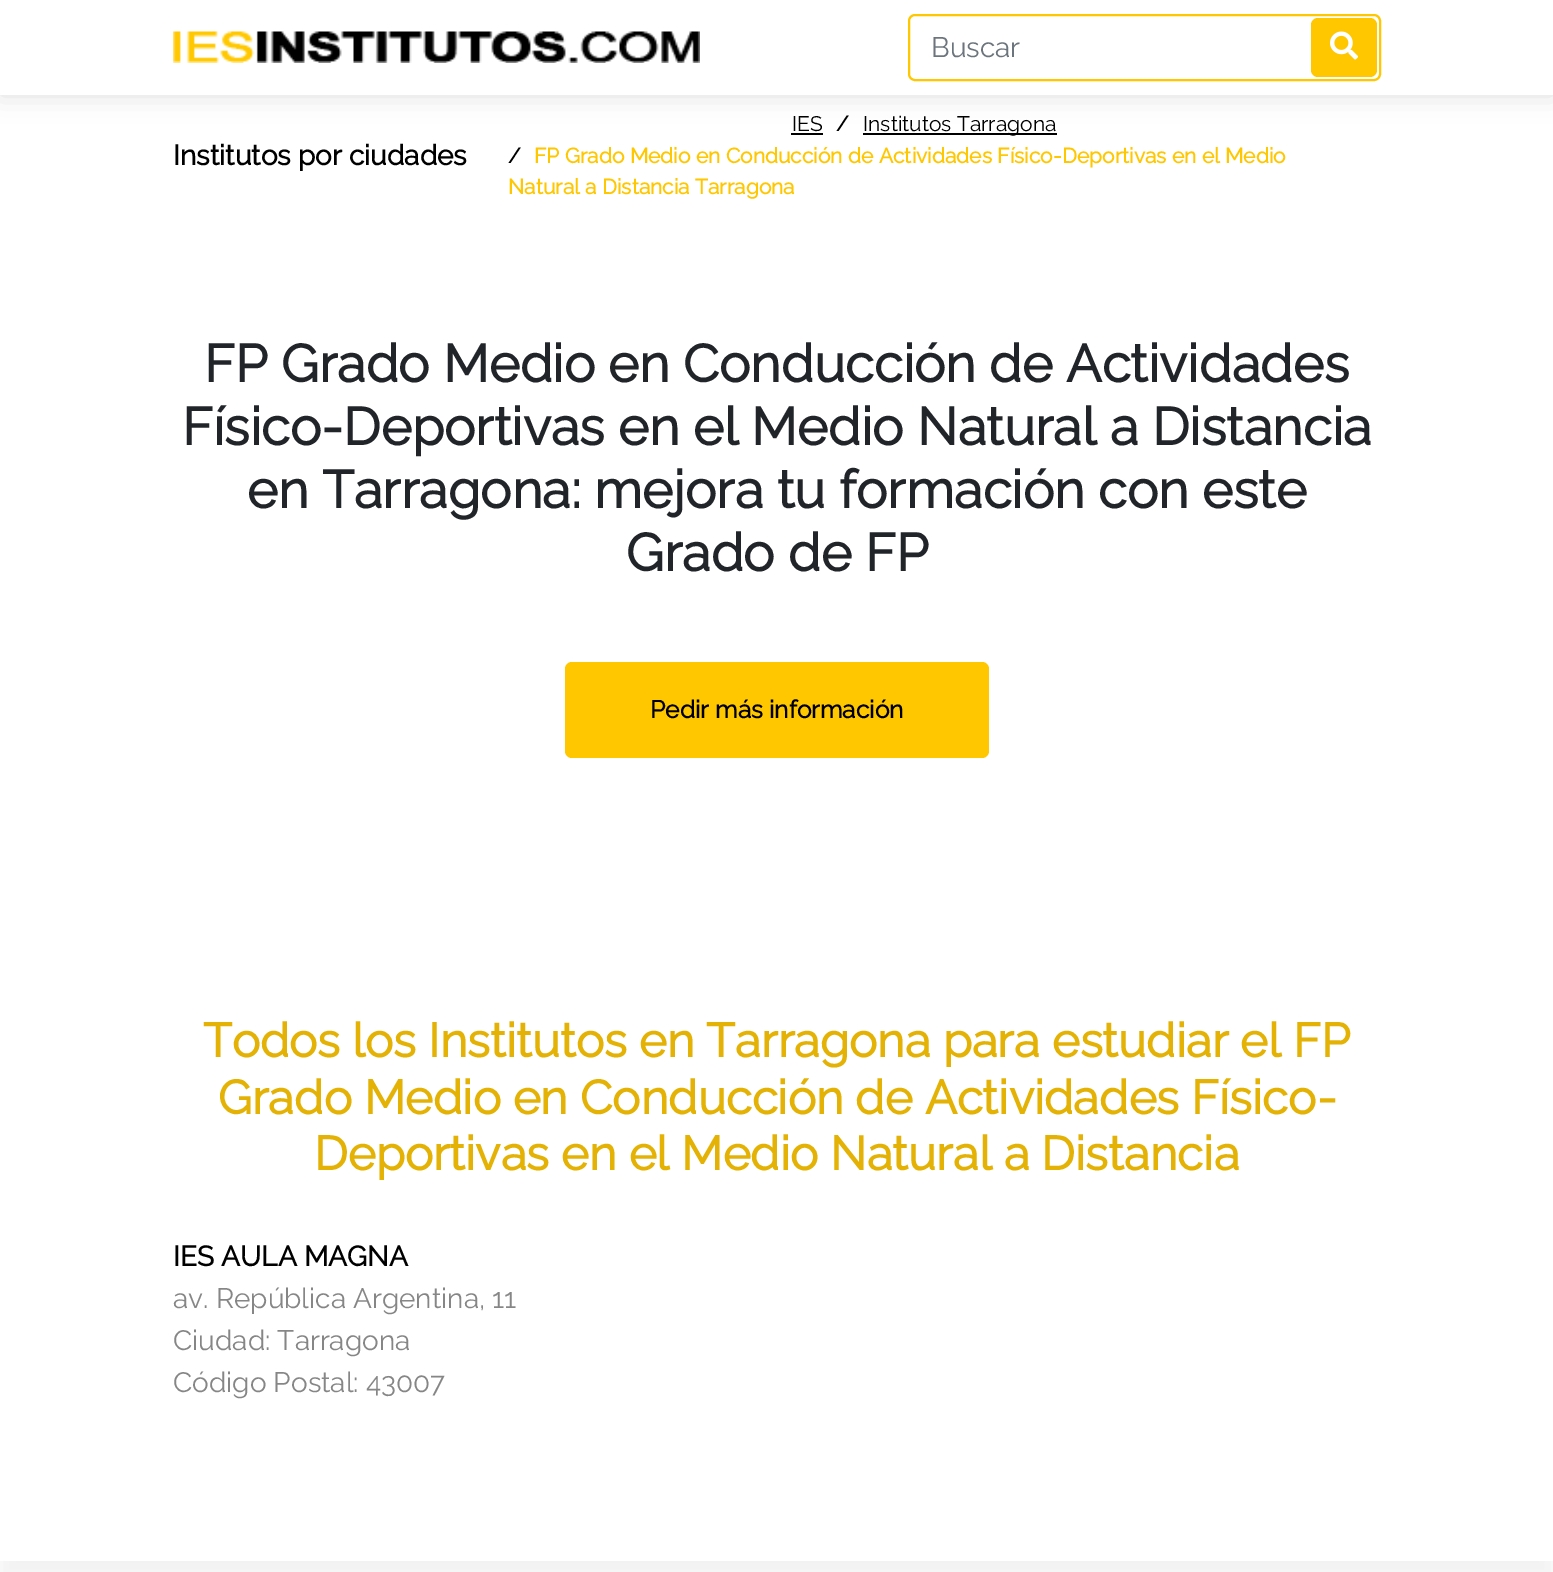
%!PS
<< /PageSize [1553 1572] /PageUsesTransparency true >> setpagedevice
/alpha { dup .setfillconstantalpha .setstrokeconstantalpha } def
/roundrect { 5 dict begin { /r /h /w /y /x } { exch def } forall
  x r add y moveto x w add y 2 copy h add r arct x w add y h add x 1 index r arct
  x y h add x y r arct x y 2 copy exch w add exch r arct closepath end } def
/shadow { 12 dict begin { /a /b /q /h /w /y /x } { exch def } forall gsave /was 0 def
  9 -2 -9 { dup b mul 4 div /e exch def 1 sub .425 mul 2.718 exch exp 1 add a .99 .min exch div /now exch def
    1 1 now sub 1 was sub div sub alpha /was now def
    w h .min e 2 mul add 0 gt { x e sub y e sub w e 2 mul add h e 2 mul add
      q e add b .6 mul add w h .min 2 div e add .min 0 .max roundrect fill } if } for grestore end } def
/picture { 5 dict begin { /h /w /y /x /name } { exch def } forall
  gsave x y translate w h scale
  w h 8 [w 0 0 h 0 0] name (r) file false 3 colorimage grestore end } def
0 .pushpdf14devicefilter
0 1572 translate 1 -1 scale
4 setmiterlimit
1 setgray
0 0 1553 1572 rectfill
0 setgray
791 133 32 2 rectfill
863 133 194 2 rectfill
gsave
newpath 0 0 moveto 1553 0 lineto 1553 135 lineto 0 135 lineto closepath 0 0 moveto 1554 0 lineto 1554 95 lineto 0 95 lineto closepath eoclip newpath
0 0 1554 95 0 13 0.13 shadow
grestore
(img1.rgb) 173 31 527 32 picture
1 0.78 0 setrgbcolor
2 setlinewidth
909 15 471 65 6 roundrect stroke
/Raleway-Regular [28 0 0 -28 0 0] selectfont
0.424 0.459 0.49 setrgbcolor
931 57 moveto (Buscar) show
1 0.78 0 setrgbcolor
1311 18 66 59 7 roundrect fill
(img2.rgb) 1330 31 28 29 picture
/Raleway-Bold [28 0 0 -28 0 0] selectfont
0 setgray
173 165 moveto (Institutos por ciudades) show
/Raleway-Regular [21 0 0 -21 0 0] selectfont
792 131 moveto (IES) show
/Raleway-Bold [21 0 0 -21 0 0] selectfont
836 131 moveto (/) show
/Raleway-Regular [21 0 0 -21 0 0] selectfont
863 131 moveto (Institutos Tarragona) show
/Raleway-Bold [21 0 0 -21 0 0] selectfont
508 163 moveto (/) show
1 0.78 0 setrgbcolor
534 163 moveto (FP Grado Medio en Conducción de Actividades Físico-Deportivas en el Medio) show
508 194 moveto (Natural a Distancia Tarragona) show
/Raleway-Bold [52.5 0 0 -52.5 0 0] selectfont
0.129 0.145 0.161 setrgbcolor
204 382 moveto (FP Grado Medio en Conducción de Actividades) show
182 445 moveto (Físico-Deportivas en el Medio Natural a Distancia) show
247 508 moveto (en Tarragona: mejora tu formación con este) show
626 571 moveto (Grado de FP) show
1 0.78 0 setrgbcolor
565 662 424 96 7 roundrect fill
/Raleway-Bold [24.5 0 0 -24.5 0 0] selectfont
0 setgray
650 718 moveto (Pedir más información) show
gsave
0 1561 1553 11 rectclip
0 947 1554 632 0 13 0.06 shadow
grestore
/Raleway-Bold [47.25 0 0 -47.25 0 0] selectfont
0.89 0.698 0.02 setrgbcolor
203 1057 moveto (Todos los Institutos en Tarragona para estudiar el FP) show
218 1114 moveto (Grado Medio en Conducción de Actividades Físico-) show
314 1170 moveto (Deportivas en el Medio Natural a Distancia) show
/Raleway-Bold [28 0 0 -28 0 0] selectfont
0 setgray
173 1266 moveto (IES AULA MAGNA) show
/Raleway-Regular [28 0 0 -28 0 0] selectfont
0.525 setgray
173 1308 moveto (av. República Argentina, 11) show
173 1350 moveto (Ciudad: Tarragona) show
173 1392 moveto (Código Postal: 43007) show
.poppdf14devicefilter showpage
